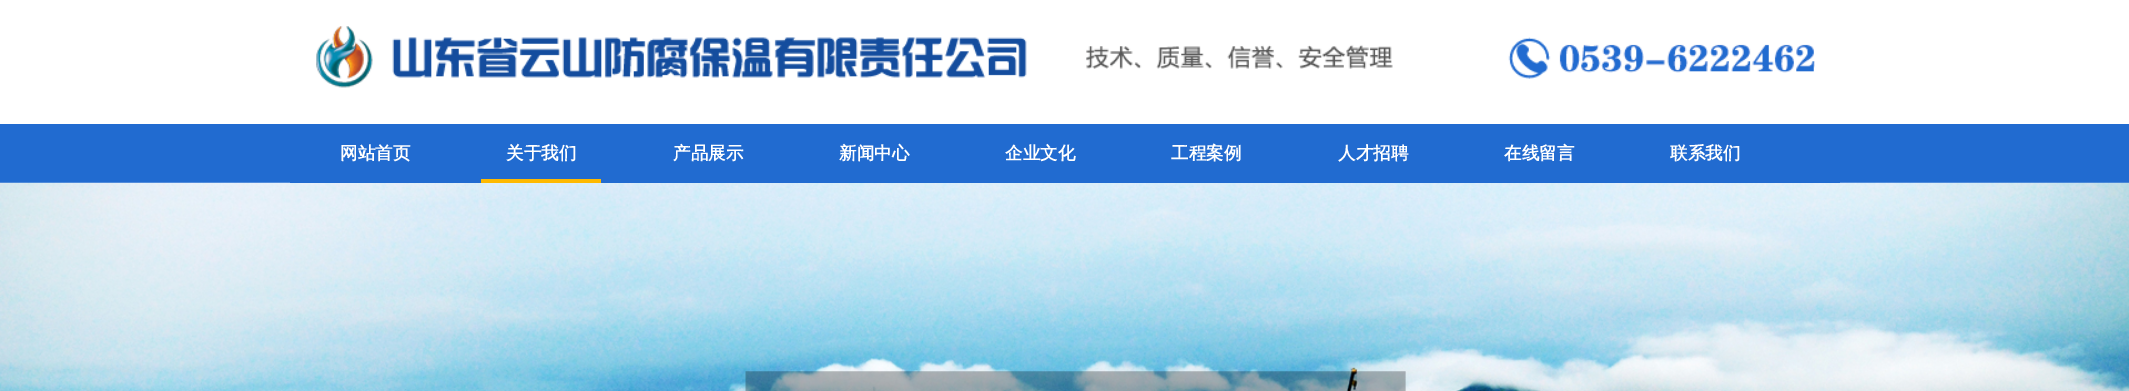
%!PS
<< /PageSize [2129 391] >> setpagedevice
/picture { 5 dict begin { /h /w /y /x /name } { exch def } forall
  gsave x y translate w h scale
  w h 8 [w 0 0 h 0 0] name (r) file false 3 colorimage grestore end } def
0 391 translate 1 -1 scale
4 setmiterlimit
1 setgray
0 0 2129 391 rectfill
(img1.rgb) 316 26 1499 62 picture
0.129 0.42 0.816 setrgbcolor
0 124 2129 59 rectfill
(img2.rgb) 0 182 2129 209 picture
290 182 1550 1 rectfill
/WenQuanYiZenHei-Bold [17.5 0 0 -17.5 0 0] selectfont
1 setgray
340 159 moveto (网站首页) show
0.996 0.725 0 setrgbcolor
481 179 120 4 rectfill
1 setgray
506 159 moveto (关于我们) show
673 159 moveto (产品展示) show
839 159 moveto (新闻中心) show
1005 159 moveto (企业文化) show
1171 159 moveto (工程案例) show
1338 159 moveto (人才招聘) show
1504 159 moveto (在线留言) show
1670 159 moveto (联系我们) show
showpage
